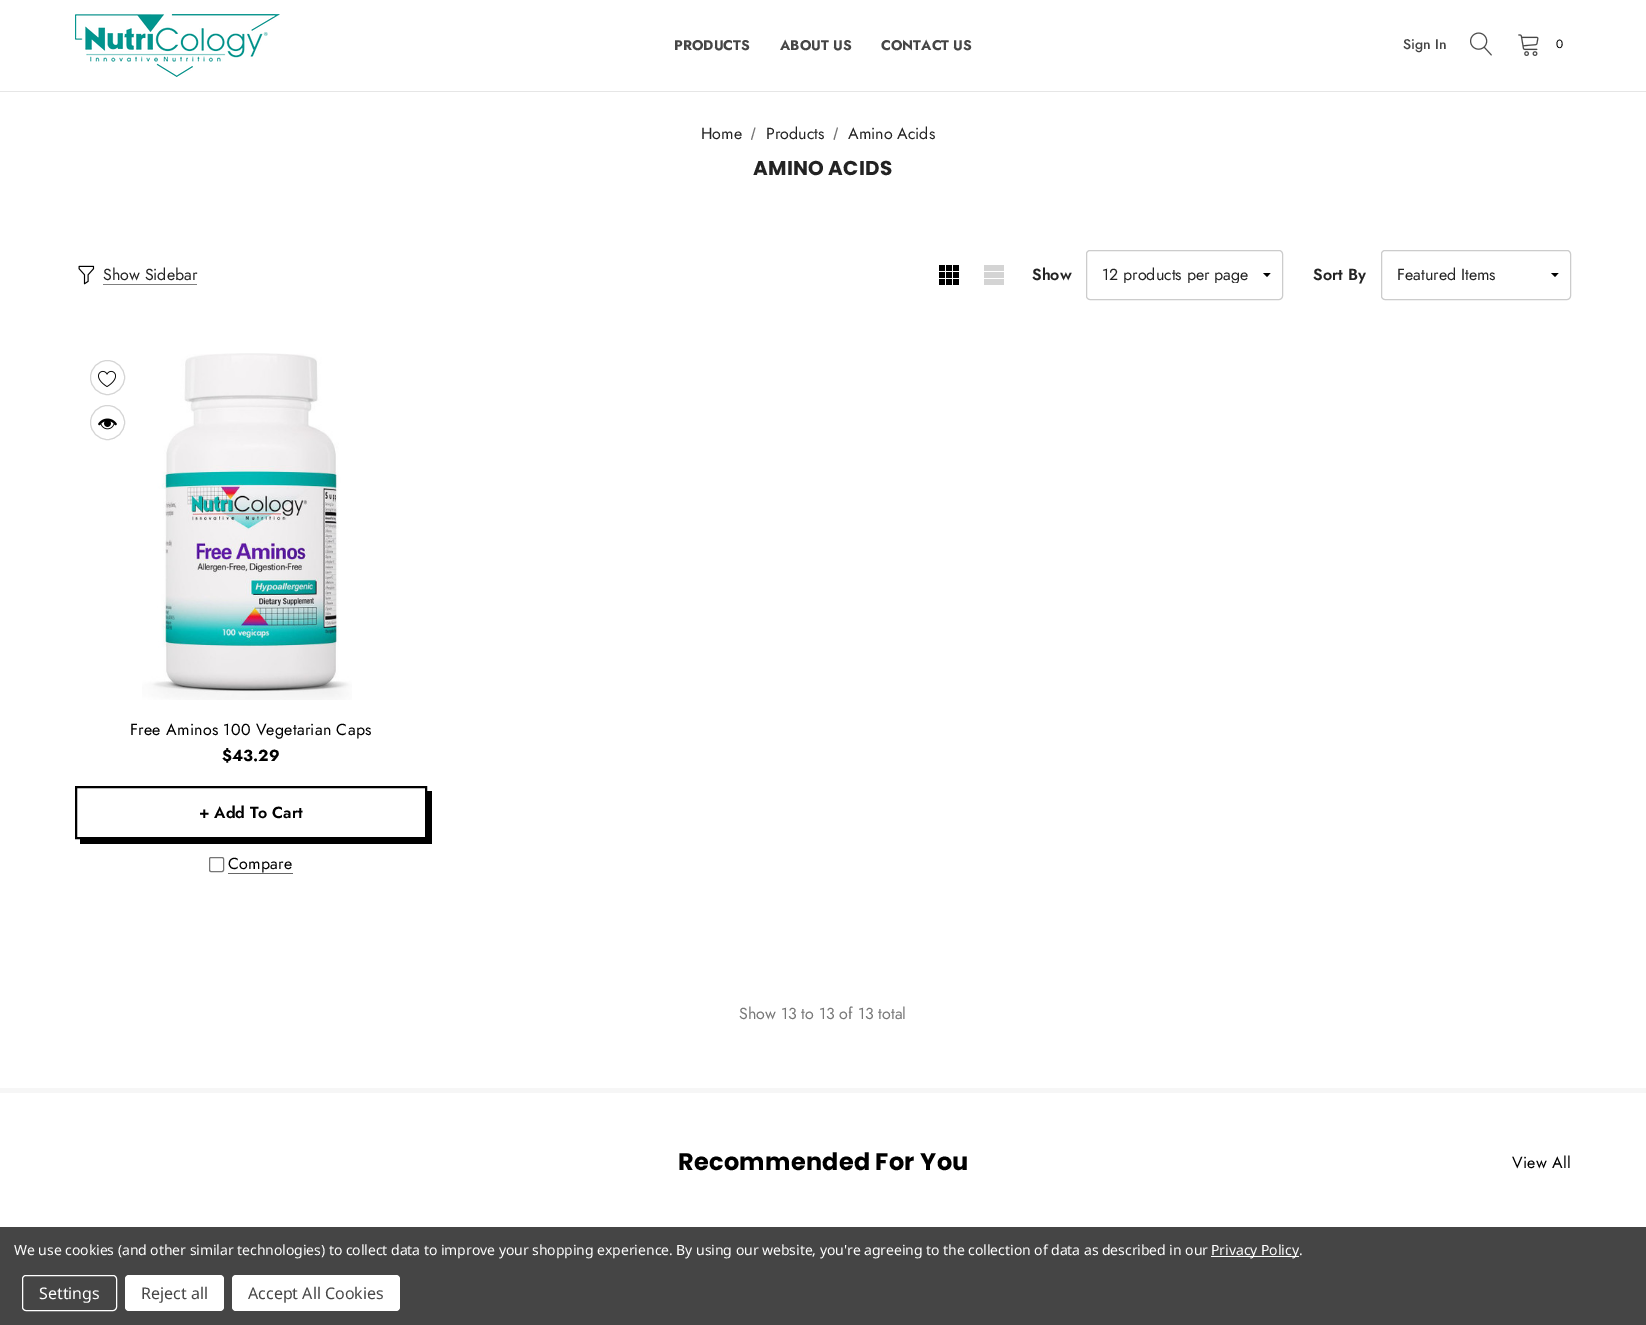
%!PS
<< /PageSize [1646 1325] >> setpagedevice
/roundrect { 5 dict begin { /r /h /w /y /x } { exch def } forall
  x r add y moveto x w add y 2 copy h add r arct x w add y h add x 1 index r arct
  x y h add x y r arct x y 2 copy exch w add exch r arct closepath end } def
/picture { 5 dict begin { /h /w /y /x /name } { exch def } forall
  gsave x y translate w h scale
  w h 8 [w 0 0 h 0 0] name (r) file false 3 colorimage grestore end } def
0 1325 translate 1 -1 scale
4 setmiterlimit
1 setgray
0 0 1646 1325 rectfill
0.902 setgray
0 91 1646 1 rectfill
(img1.rgb) 75 14 205 63 picture
/Jost-Bold [14 0 0 -14 0 0] selectfont
0.275 setgray
674 50 moveto (PRODUCTS) show
780 50 moveto (ABOUT US) show
881 50 moveto (CONTACT US) show
/Jost-Medium [14 0 0 -14 0 0] selectfont
1403 49 moveto (Sign In) show
(img2.rgb) 1470 32 22 24 picture
(img3.rgb) 1518 34 21 22 picture
/Jost-Regular [12 0 0 -12 0 0] selectfont
0 setgray
1556 48 moveto (0) show
/Jost-Regular [16 0 0 -16 0 0] selectfont
0.137 setgray
701 139 moveto (Home) show
0.459 setgray
newpath 754.5 127.5 moveto 755.5 127.5 lineto 752 140 lineto 751 139.5 lineto closepath fill
0.137 setgray
766 139 moveto (Products) show
0.459 setgray
newpath 837 127.5 moveto 838 127.5 lineto 834.5 140 lineto 833.5 139.5 lineto closepath fill
0.137 setgray
848 139 moveto (Amino Acids) show
/Poppins-Bold [20 0 0 -20 0 0] selectfont
753 175 moveto 0.25 0 (AMINO ACIDS) ashow
(img4.rgb) 78 265 17 20 picture
0.498 setgray
103 284 94 1 rectfill
/Jost-Regular [16 0 0 -16 0 0] selectfont
0.137 setgray
103 280 moveto (Show Sidebar) show
0 setgray
939 272 6 6 rectfill
939 265 6 6 rectfill
939 279 6 6 rectfill
946 272 6 6 rectfill
946 265 6 6 rectfill
946 279 6 6 rectfill
953 272 6 6 rectfill
953 265 6 6 rectfill
953 279 6 6 rectfill
0.831 setgray
984 265 20 6 rectfill
984 272 20 6 rectfill
984 279 20 6 rectfill
/Jost-SemiBold [16 0 0 -16 0 0] selectfont
0.137 setgray
1032 280 moveto (Show) show
0 setgray
newpath 1270.5 273 moveto 1267 277 lineto 1263 273 lineto closepath fill
0.8 setgray
1086.5 250.5 196 49 3.5 roundrect stroke
gsave
1102 267 150 16 rectclip
/Jost-Regular [16 0 0 -16 0 0] selectfont
0.137 setgray
1102 280 moveto (12 products per page) show
grestore
0.137 setgray
1313 280 moveto (Sort By) show
0 setgray
newpath 1558.5 273 moveto 1555 277 lineto 1551 273 lineto closepath fill
0.8 setgray
1381.5 250.5 189 49 3.5 roundrect stroke
/Jost-Regular [16 0 0 -16 0 0] selectfont
0.137 setgray
1397 280 moveto (Featured Items) show
0.835 setgray
newpath 107.5 377.5 17 0 360 arc closepath stroke
(img5.rgb) 98 370 18 17 picture
newpath 107.5 422.5 17 0 360 arc closepath stroke
(img6.rgb) 98 418 19 12 picture
(img7.rgb) 142 353 210 347 picture
0 setgray
130 735 moveto 0.25 0 (Free Aminos 100 Vegetarian Caps) ashow
/Jost-Bold [16 0 0 -16 0 0] selectfont
222 761 moveto ($43.29) show
newpath 80 839 moveto 80 844 lineto 432 844 lineto 432 791 lineto 427 791 lineto 427 839 lineto closepath fill
2 setlinewidth
76 787 350 51 rectstroke
/Jost-SemiBold [16 0 0 -16 0 0] selectfont
199 818 moveto (+ Add To Cart) show
0.463 setgray
1 setlinewidth
209.5 857.5 14 14 1.5 roundrect stroke
0.4 setgray
228 873 65 1 rectfill
/Jost-Regular [16 0 0 -16 0 0] selectfont
0 setgray
228 869 moveto 0.25 0 (Compare) ashow
0.471 setgray
739 1019 moveto (Show 13 to 13 of 13 total) show
0.965 setgray
0 1088 1646 5 rectfill
/Poppins-Bold [24 0 0 -24 0 0] selectfont
0 setgray
678 1170 moveto 0.25 0 (Recommended For You) ashow
/Jost-Regular [16 0 0 -16 0 0] selectfont
1512 1168 moveto 0.25 0 (View All) ashow
0.271 setgray
0 1227 1646 98 rectfill
/NotoSans-Regular [14 0 0 -14 0 0] selectfont
1 setgray
14 1255 moveto -0.05 0 (We use cookies \(and other similar technologies\) to collect data to improve your shopping experience. By using our website, you're agreeing to the collection of data as described in our) ashow
1211 1256 88 1 rectfill
1211 1255 moveto -0.05 0 (Privacy Policy.) ashow
22.5 1275.5 94 35 3.5 roundrect stroke
/NotoSans-Regular [16 0 0 -16 0 0] selectfont
39 1299 moveto (Settings) show
125 1275 99 36 4 roundrect fill
0.275 setgray
141 1299 moveto (Reject all) show
1 setgray
232 1275 168 36 4 roundrect fill
0.275 setgray
248 1299 moveto (Accept All Cookies) show
showpage
